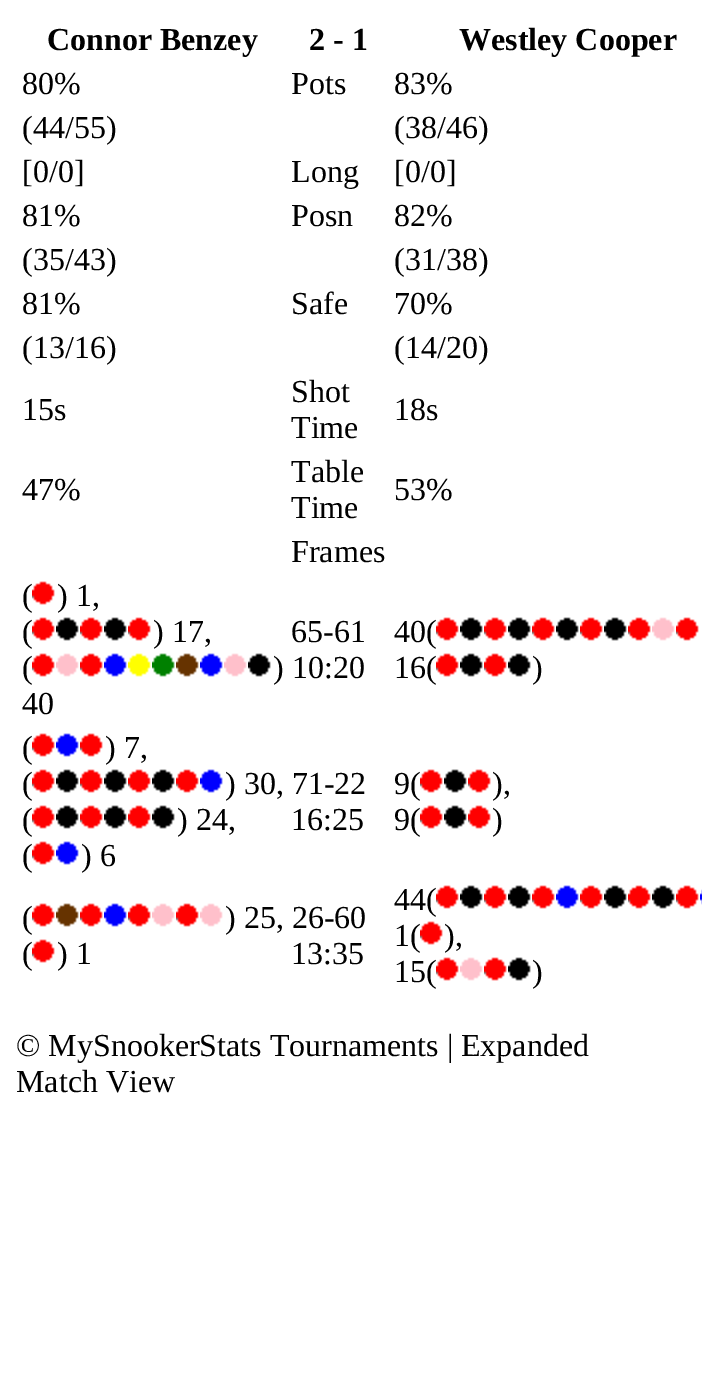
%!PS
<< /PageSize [702 1388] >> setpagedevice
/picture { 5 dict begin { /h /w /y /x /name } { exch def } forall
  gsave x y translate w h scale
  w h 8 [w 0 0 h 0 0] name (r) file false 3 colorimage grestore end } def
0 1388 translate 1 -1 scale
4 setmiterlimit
1 setgray
0 0 702 1388 rectfill
/LiberationSerif-Bold [32 0 0 -32 0 0] selectfont
0 setgray
47 50 moveto (Connor Benzey) show
309 50 moveto (2 - 1) show
459 50 moveto (Westley Cooper) show
/LiberationSerif-Regular [32 0 0 -32 0 0] selectfont
22 94 moveto (80%) show
291 94 moveto (Pots) show
394 94 moveto (83%) show
22 138 moveto (\(44/55\)) show
394 138 moveto (\(38/46\)) show
22 182 moveto ([0/0]) show
291 182 moveto (Long) show
394 182 moveto ([0/0]) show
22 226 moveto (81%) show
291 226 moveto (Posn) show
394 226 moveto (82%) show
22 270 moveto (\(35/43\)) show
394 270 moveto (\(31/38\)) show
22 314 moveto (81%) show
291 314 moveto (Safe) show
394 314 moveto (70%) show
22 358 moveto (\(13/16\)) show
394 358 moveto (\(14/20\)) show
22 420 moveto (15s) show
291 402 moveto (Shot) show
291 438 moveto (Time) show
394 420 moveto (18s) show
22 500 moveto (47%) show
291 482 moveto (Table) show
291 518 moveto (Time) show
394 500 moveto (53%) show
291 562 moveto (Frames) show
22 606 moveto (\() show
(img1.rgb) 32 581 23 24 picture
57 606 moveto (\) 1,) show
22 642 moveto (\() show
(img1.rgb) 32 617 23 24 picture
(img2.rgb) 56 617 23 24 picture
(img1.rgb) 80 617 23 24 picture
(img2.rgb) 104 617 23 24 picture
(img1.rgb) 128 617 23 24 picture
153 642 moveto (\) 17,) show
22 678 moveto (\() show
(img1.rgb) 32 653 23 24 picture
(img3.rgb) 56 653 23 24 picture
(img1.rgb) 80 653 23 24 picture
(img4.rgb) 104 653 23 24 picture
(img5.rgb) 128 653 23 24 picture
(img6.rgb) 152 653 23 24 picture
(img7.rgb) 176 653 23 24 picture
(img4.rgb) 200 653 23 24 picture
(img3.rgb) 224 653 23 24 picture
(img2.rgb) 248 653 23 24 picture
273 678 moveto (\) 10:20) show
22 714 moveto (40) show
394 642 moveto (40\() show
(img1.rgb) 436 617 23 24 picture
(img2.rgb) 460 617 23 24 picture
(img1.rgb) 484 617 23 24 picture
(img2.rgb) 508 617 23 24 picture
(img1.rgb) 532 617 23 24 picture
(img2.rgb) 556 617 23 24 picture
(img1.rgb) 580 617 23 24 picture
(img2.rgb) 604 617 23 24 picture
(img1.rgb) 628 617 23 24 picture
(img3.rgb) 652 617 23 24 picture
(img1.rgb) 676 617 23 24 picture
394 678 moveto (16\() show
(img1.rgb) 436 653 23 24 picture
(img2.rgb) 460 653 23 24 picture
(img1.rgb) 484 653 23 24 picture
(img2.rgb) 508 653 23 24 picture
532 678 moveto (\)) show
291 642 moveto (65-61) show
22 758 moveto (\() show
(img1.rgb) 32 733 23 24 picture
(img4.rgb) 56 733 23 24 picture
(img1.rgb) 80 733 23 24 picture
105 758 moveto (\) 7,) show
22 794 moveto (\() show
(img1.rgb) 32 769 23 24 picture
(img2.rgb) 56 769 23 24 picture
(img1.rgb) 80 769 23 24 picture
(img2.rgb) 104 769 23 24 picture
(img1.rgb) 128 769 23 24 picture
(img2.rgb) 152 769 23 24 picture
(img1.rgb) 176 769 23 24 picture
(img4.rgb) 200 769 23 24 picture
225 794 moveto (\) 30, 71-22) show
22 830 moveto (\() show
(img1.rgb) 32 805 23 24 picture
(img2.rgb) 56 805 23 24 picture
(img1.rgb) 80 805 23 24 picture
(img2.rgb) 104 805 23 24 picture
(img1.rgb) 128 805 23 24 picture
(img2.rgb) 152 805 23 24 picture
177 830 moveto (\) 24,) show
22 866 moveto (\() show
(img1.rgb) 32 841 23 24 picture
(img4.rgb) 56 841 23 24 picture
81 866 moveto (\) 6) show
394 794 moveto (9\() show
(img1.rgb) 420 769 23 24 picture
(img2.rgb) 444 769 23 24 picture
(img1.rgb) 468 769 23 24 picture
492 794 moveto (\),) show
394 830 moveto (9\() show
(img1.rgb) 420 805 23 24 picture
(img2.rgb) 444 805 23 24 picture
(img1.rgb) 468 805 23 24 picture
492 830 moveto (\)) show
291 830 moveto (16:25) show
22 928 moveto (\() show
(img1.rgb) 32 903 23 24 picture
(img7.rgb) 56 903 23 24 picture
(img1.rgb) 80 903 23 24 picture
(img4.rgb) 104 903 23 24 picture
(img1.rgb) 128 903 23 24 picture
(img3.rgb) 152 903 23 24 picture
(img1.rgb) 176 903 23 24 picture
(img3.rgb) 200 903 23 24 picture
225 928 moveto (\) 25, 26-60) show
22 964 moveto (\() show
(img1.rgb) 32 939 23 24 picture
57 964 moveto (\) 1) show
394 910 moveto (44\() show
(img1.rgb) 436 885 23 24 picture
(img2.rgb) 460 885 23 24 picture
(img1.rgb) 484 885 23 24 picture
(img2.rgb) 508 885 23 24 picture
(img1.rgb) 532 885 23 24 picture
(img4.rgb) 556 885 23 24 picture
(img1.rgb) 580 885 23 24 picture
(img2.rgb) 604 885 23 24 picture
(img1.rgb) 628 885 23 24 picture
(img2.rgb) 652 885 23 24 picture
(img1.rgb) 676 885 23 24 picture
(img8.rgb) 700 889 2 16 picture
394 946 moveto (1\() show
(img1.rgb) 420 921 23 24 picture
444 946 moveto (\),) show
394 982 moveto (15\() show
(img1.rgb) 436 957 23 24 picture
(img3.rgb) 460 957 23 24 picture
(img1.rgb) 484 957 23 24 picture
(img2.rgb) 508 957 23 24 picture
532 982 moveto (\)) show
291 964 moveto (13:35) show
16 1056 moveto (© MySnookerStats Tournaments | Expanded) show
16 1092 moveto (Match View) show
showpage
